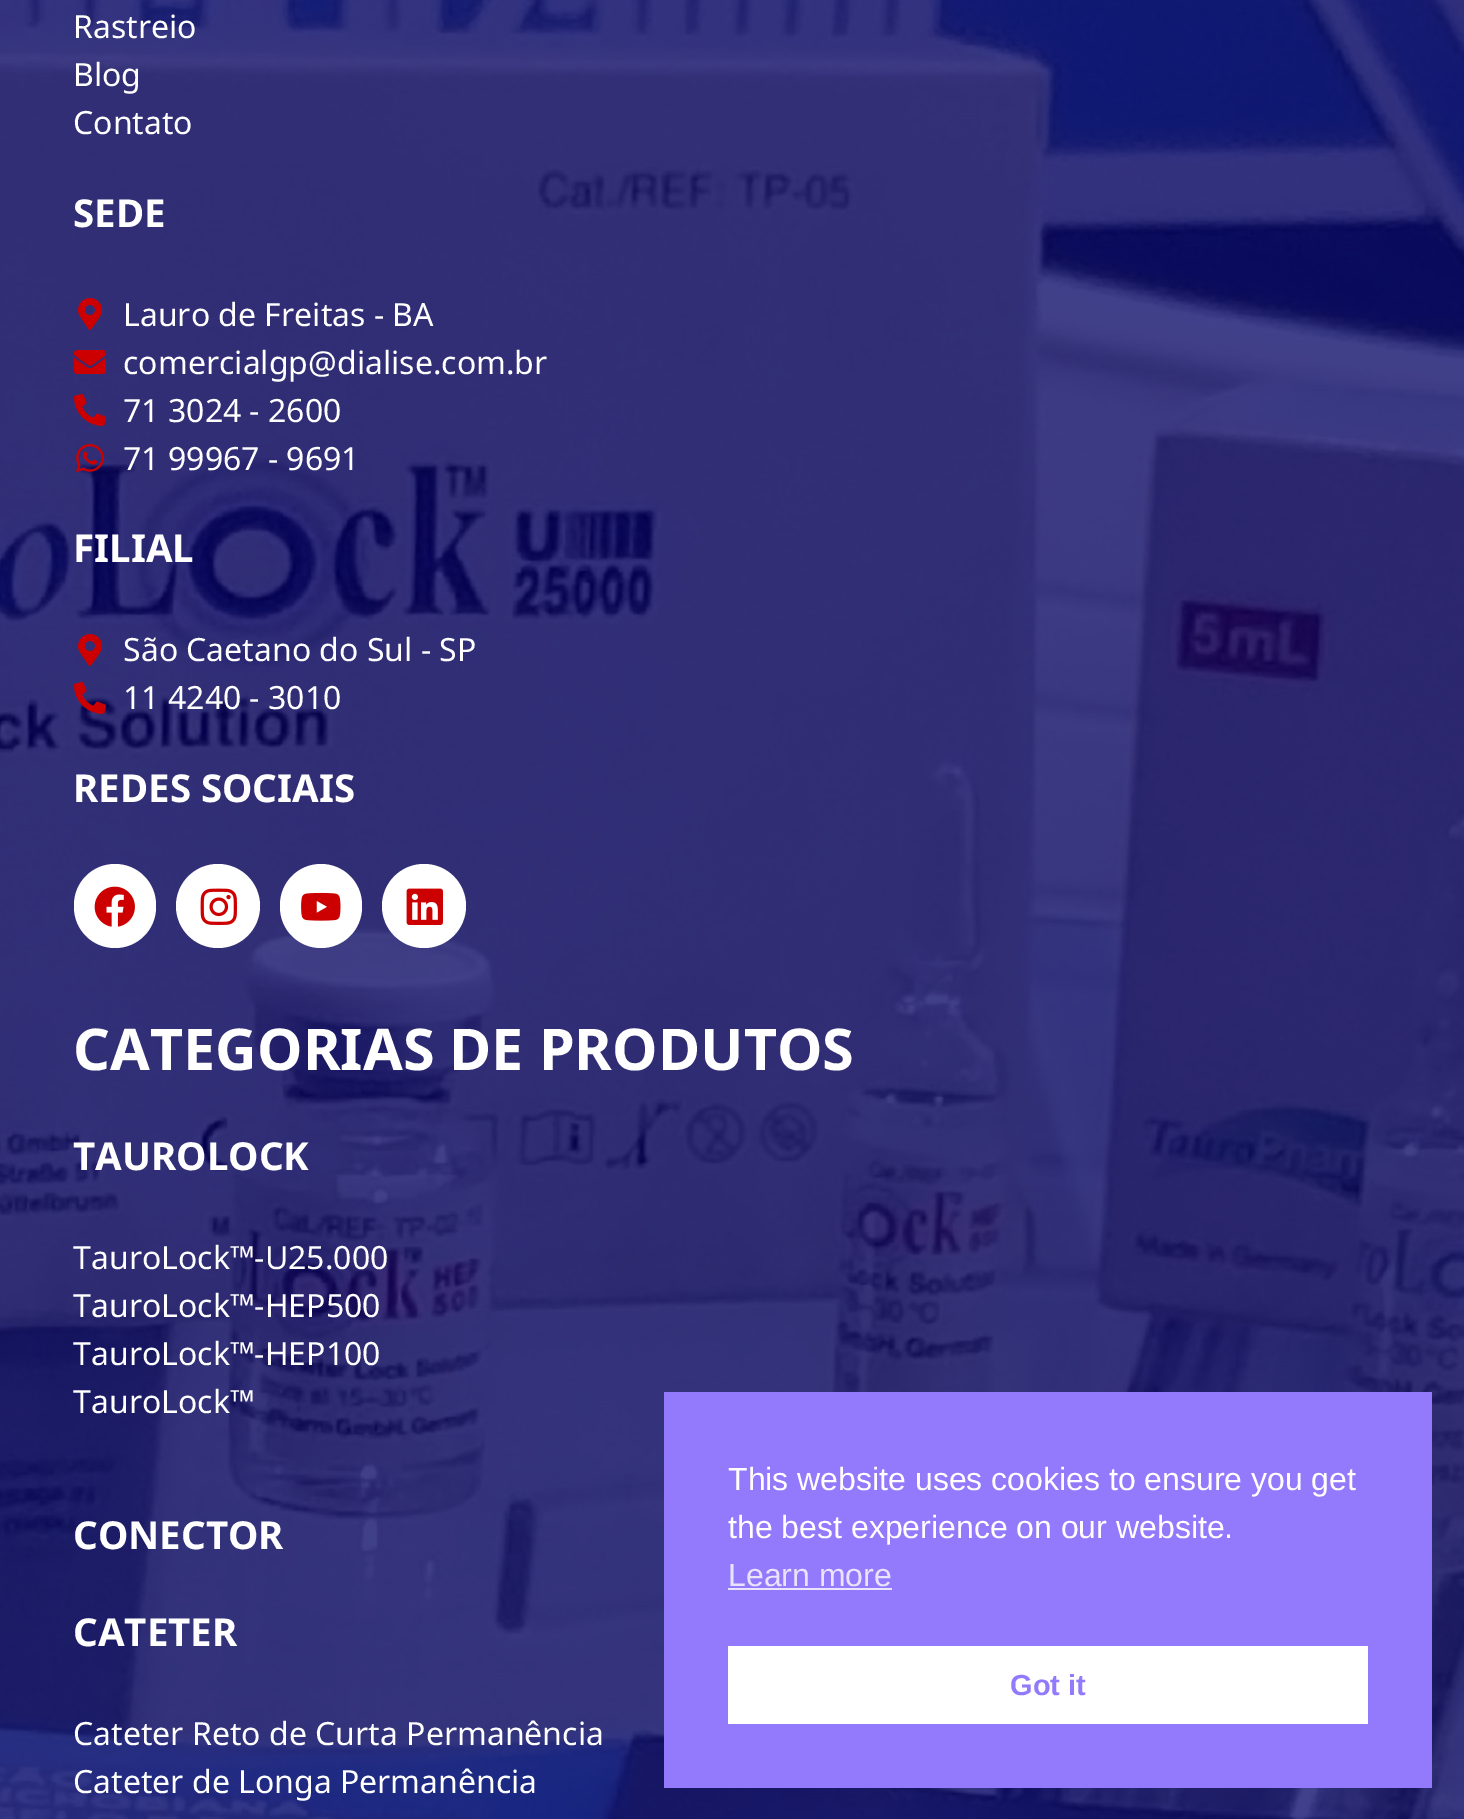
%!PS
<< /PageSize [1464 1819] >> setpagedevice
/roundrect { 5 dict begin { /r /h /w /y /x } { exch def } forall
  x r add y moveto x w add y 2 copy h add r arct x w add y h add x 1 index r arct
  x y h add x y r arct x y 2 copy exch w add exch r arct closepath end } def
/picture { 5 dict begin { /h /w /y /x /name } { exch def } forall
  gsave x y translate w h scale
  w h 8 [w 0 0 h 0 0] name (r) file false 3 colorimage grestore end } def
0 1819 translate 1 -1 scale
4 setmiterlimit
1 setgray
0 0 1464 1819 rectfill
(img1.rgb) 0 0 1464 1819 picture
/NotoSans-Regular [32 0 0 -32 0 0] selectfont
73 38 moveto (Rastreio) show
73 86 moveto (Blog) show
73 134 moveto (Contato) show
/NotoSans-Bold [38.5 0 0 -38.5 0 0] selectfont
73 227 moveto (SEDE) show
(img2.rgb) 78 298 24 32 picture
/NotoSans-Regular [32 0 0 -32 0 0] selectfont
123 326 moveto (Lauro de Freitas - BA) show
(img3.rgb) 74 350 32 24 picture
123 374 moveto (comercialgp@dialise.com.br) show
(img4.rgb) 74 394 32 32 picture
123 422 moveto (71 3024 - 2600) show
(img5.rgb) 76 444 28 28 picture
123 470 moveto (71 99967 - 9691) show
/NotoSans-Bold [38.5 0 0 -38.5 0 0] selectfont
73 562 moveto (FILIAL) show
(img6.rgb) 78 634 24 32 picture
/NotoSans-Regular [32 0 0 -32 0 0] selectfont
123 661 moveto (São Caetano do Sul - SP) show
(img7.rgb) 74 682 32 32 picture
123 709 moveto (11 4240 - 3010) show
/NotoSans-Bold [38.5 0 0 -38.5 0 0] selectfont
73 802 moveto (REDES SOCIAIS) show
74 864 82 84 41 roundrect fill
(img8.rgb) 94 886 41 41 picture
newpath 218 906 42 0 360 arc closepath fill
(img9.rgb) 200 888 37 37 picture
280 864 82 84 41 roundrect fill
(img10.rgb) 301 892 40 29 picture
newpath 424 906 42 0 360 arc closepath fill
(img11.rgb) 406 888 37 37 picture
/NotoSans-Bold [57.6 0 0 -57.6 0 0] selectfont
73 1070 moveto (CATEGORIAS DE PRODUTOS) show
/NotoSans-Bold [38.5 0 0 -38.5 0 0] selectfont
73 1170 moveto (TAUROLOCK) show
/NotoSans-Regular [32 0 0 -32 0 0] selectfont
73 1269 moveto (TauroLock™-U25.000) show
73 1317 moveto (TauroLock™-HEP500) show
73 1365 moveto (TauroLock™-HEP100) show
73 1413 moveto (TauroLock™) show
/NotoSans-Bold [38.5 0 0 -38.5 0 0] selectfont
73 1549 moveto (CONECTOR) show
73 1646 moveto (CATETER) show
/NotoSans-Regular [32 0 0 -32 0 0] selectfont
73 1745 moveto (Cateter Reto de Curta Permanência) show
73 1793 moveto (Cateter de Longa Permanência) show
0.576 0.478 0.988 setrgbcolor
664 1392 768 396 rectfill
/LiberationSans-Regular [32 0 0 -32 0 0] selectfont
1 setgray
728 1490 moveto (This website uses cookies to ensure you get) show
728 1538 moveto (the best experience on our website.) show
0.914 0.894 0.996 setrgbcolor
728 1586 moveto (Learn more) show
728 1588 164 2 rectfill
1 setgray
728 1646 640 78 rectfill
/LiberationSans-Bold [29 0 0 -29 0 0] selectfont
0.576 0.478 0.988 setrgbcolor
1010 1695 moveto (Got it) show
showpage
